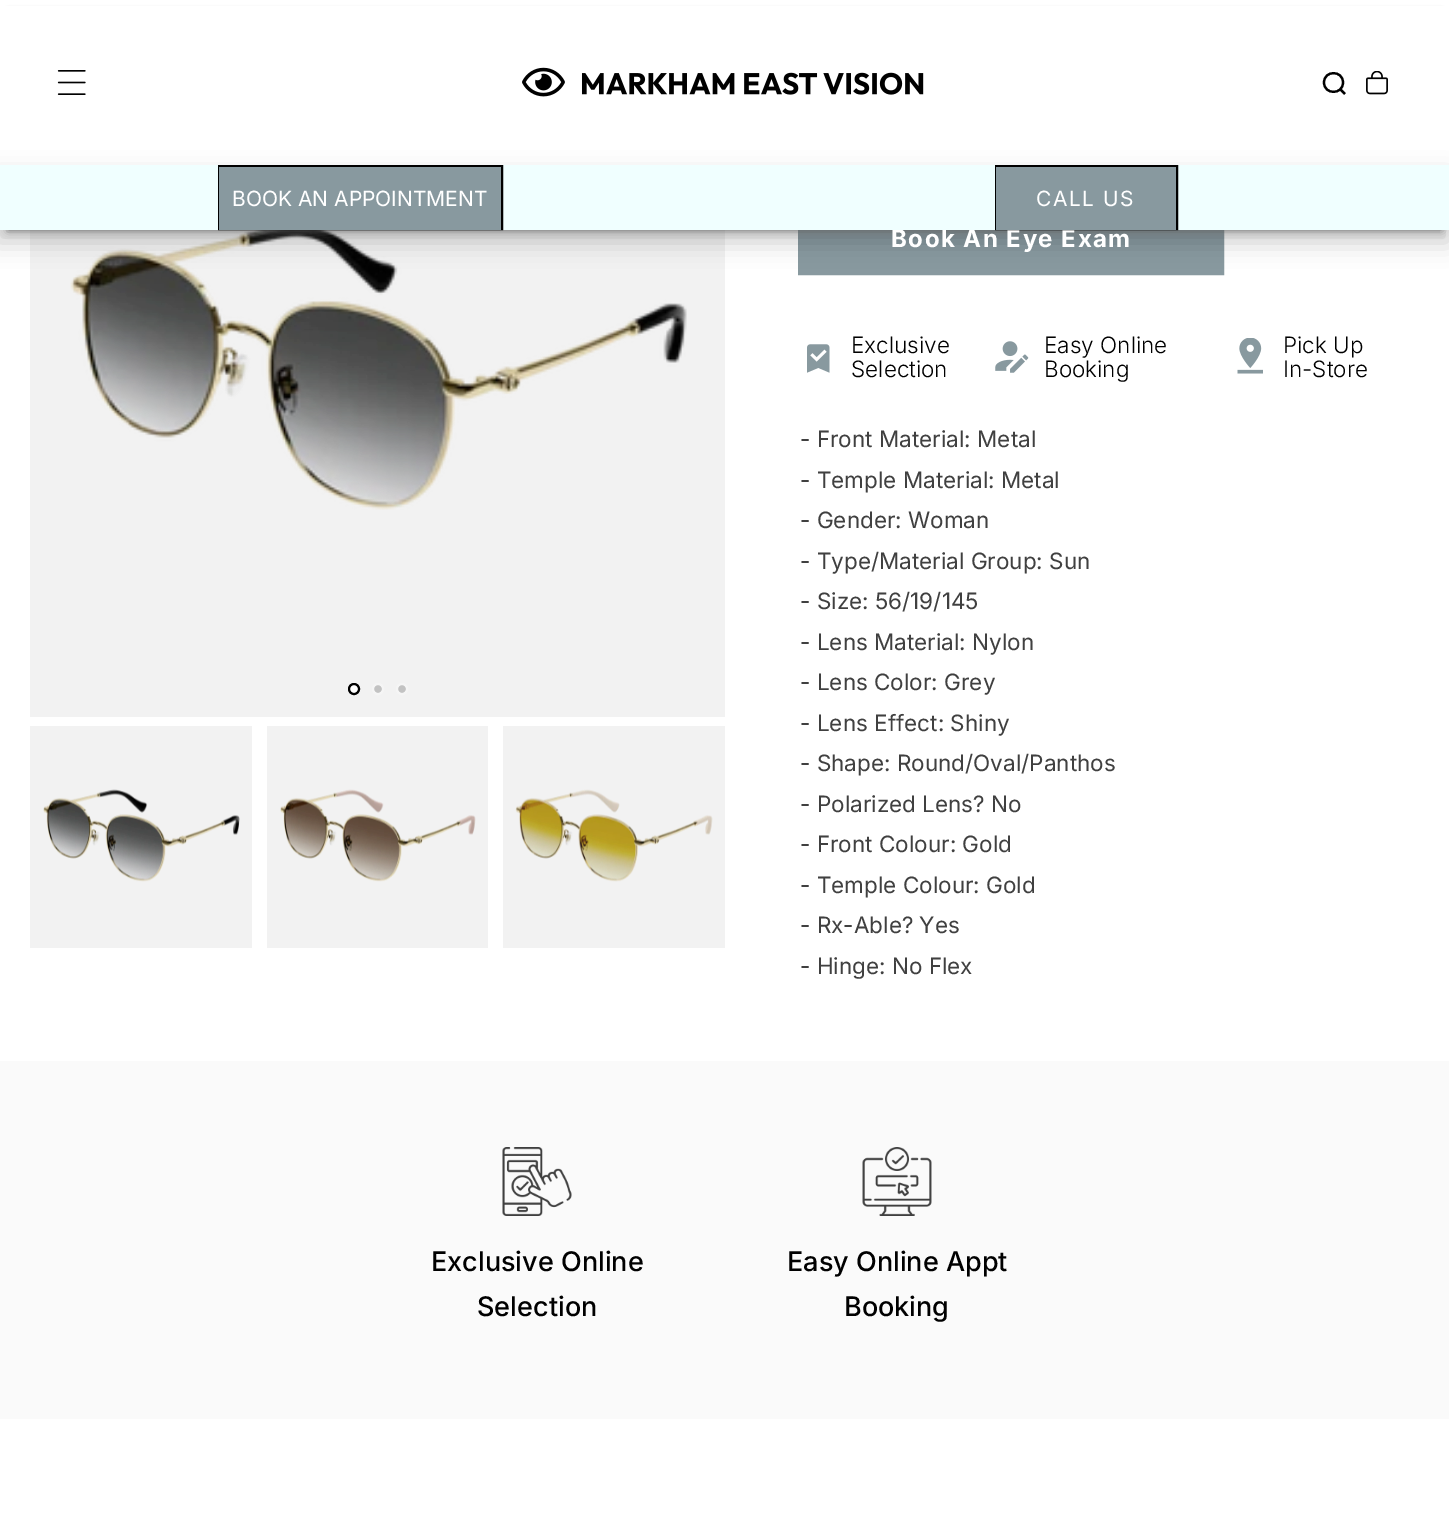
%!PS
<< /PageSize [1449 1540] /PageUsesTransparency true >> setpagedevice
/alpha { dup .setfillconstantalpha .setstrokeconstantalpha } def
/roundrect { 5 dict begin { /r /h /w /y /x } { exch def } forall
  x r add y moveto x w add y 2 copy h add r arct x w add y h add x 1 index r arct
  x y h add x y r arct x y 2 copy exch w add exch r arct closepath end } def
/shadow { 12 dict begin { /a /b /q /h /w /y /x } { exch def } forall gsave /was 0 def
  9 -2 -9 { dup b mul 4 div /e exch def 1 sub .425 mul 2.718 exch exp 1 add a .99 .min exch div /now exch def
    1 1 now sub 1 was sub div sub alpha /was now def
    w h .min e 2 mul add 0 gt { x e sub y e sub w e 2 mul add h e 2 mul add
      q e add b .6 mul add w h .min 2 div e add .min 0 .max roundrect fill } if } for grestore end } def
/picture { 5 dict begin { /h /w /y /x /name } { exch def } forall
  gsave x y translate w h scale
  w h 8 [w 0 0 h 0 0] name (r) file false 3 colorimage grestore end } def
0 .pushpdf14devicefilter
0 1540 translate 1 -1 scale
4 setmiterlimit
1 setgray
0 0 1449 1540 rectfill
0.949 setgray
30 230 695 487 rectfill
(img4.rgb) 70 230 617 280 picture
0.533 0.6 0.624 setrgbcolor
2 setlinewidth
799 205 424 69 rectstroke
800 230 422 43 rectfill
0.502 setgray
8 15 1434 215 0 4.5 1 shadow
1 setgray
0 6 1449 159 rectfill
(img1.rgb) 57 70 29 25 picture
(img2.rgb) 522 67 402 30 picture
0 setgray
2.2 setlinewidth
1 setlinecap
newpath 1345 94 moveto 1340 89 lineto closepath 1343 82.5 moveto 1343 95 1324 95 1324 82.5 curveto 1324 70 1343 70 1343 82.5 curveto closepath stroke
(img3.rgb) 1366 71 22 24 picture
-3 177 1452 65 0 12 0.2 shadow
/Inter-Bold [24 0 0 -24 0 0] selectfont
1 setgray
891 247 moveto 1.5 0 (Book An Eye Exam) ashow
0.941 1 1 setrgbcolor
0 165 1449 65 rectfill
0 setgray
2 setlinewidth
0 setlinecap
219 166 283 63 rectstroke
0.533 0.6 0.624 setrgbcolor
219 167 282 63 rectfill
/Inter-Regular [21 0 0 -21 0 0] selectfont
1 setgray
232 206 moveto (BOOK AN APPOINTMENT) show
0 setgray
996 166 181 63 rectstroke
0.533 0.6 0.624 setrgbcolor
996 167 180 63 rectfill
1 setgray
1036 206 moveto 1.5 0 (CALL US) ashow
newpath 354 689 5 0 360 arc closepath gsave fill grestore
0 setgray
stroke
0.761 setgray
newpath 378 689 5 0 360 arc closepath gsave fill grestore
0.961 setgray
stroke
0.761 setgray
newpath 402 689 5 0 360 arc closepath gsave fill grestore
0.961 setgray
stroke
0.949 setgray
30 726 222 222 rectfill
(img5.rgb) 43 789 197 93 picture
267 726 221 222 rectfill
(img6.rgb) 280 789 196 93 picture
503 726 222 222 rectfill
(img7.rgb) 515 789 198 93 picture
(img8.rgb) 807 344 23 29 picture
/Inter-Light [22.5 0 0 -22.5 0 0] selectfont
0 setgray
851 353 moveto (Exclusive) show
851 377 moveto (Selection) show
(img9.rgb) 995 341 34 32 picture
1044 353 moveto (Easy Online) show
1044 377 moveto (Booking) show
(img10.rgb) 1237 338 26 36 picture
1283 353 moveto (Pick Up) show
1283 377 moveto (In-Store) show
/Inter-Regular [22.5 0 0 -22.5 0 0] selectfont
0.251 setgray
800 447 moveto (- Front Material: Metal) show
800 488 moveto (- Temple Material: Metal) show
800 528 moveto (- Gender: Woman) show
800 569 moveto (- Type/Material Group: Sun) show
800 609 moveto (- Size: 56/19/145) show
800 650 moveto (- Lens Material: Nylon) show
800 690 moveto (- Lens Color: Grey) show
800 731 moveto (- Lens Effect: Shiny) show
800 771 moveto (- Shape: Round/Oval/Panthos) show
800 812 moveto (- Polarized Lens? No) show
800 852 moveto (- Front Colour: Gold) show
800 893 moveto (- Temple Colour: Gold) show
800 933 moveto (- Rx-Able? Yes) show
800 974 moveto (- Hinge: No Flex) show
0.98 setgray
0 1061 1449 358 rectfill
(img11.rgb) 502 1147 70 69 picture
/Inter-Medium [27 0 0 -27 0 0] selectfont
0 setgray
431 1271 moveto (Exclusive Online) show
477 1316 moveto (Selection) show
(img12.rgb) 862 1147 70 69 picture
787 1271 moveto (Easy Online Appt) show
844 1316 moveto (Booking) show
.poppdf14devicefilter showpage
